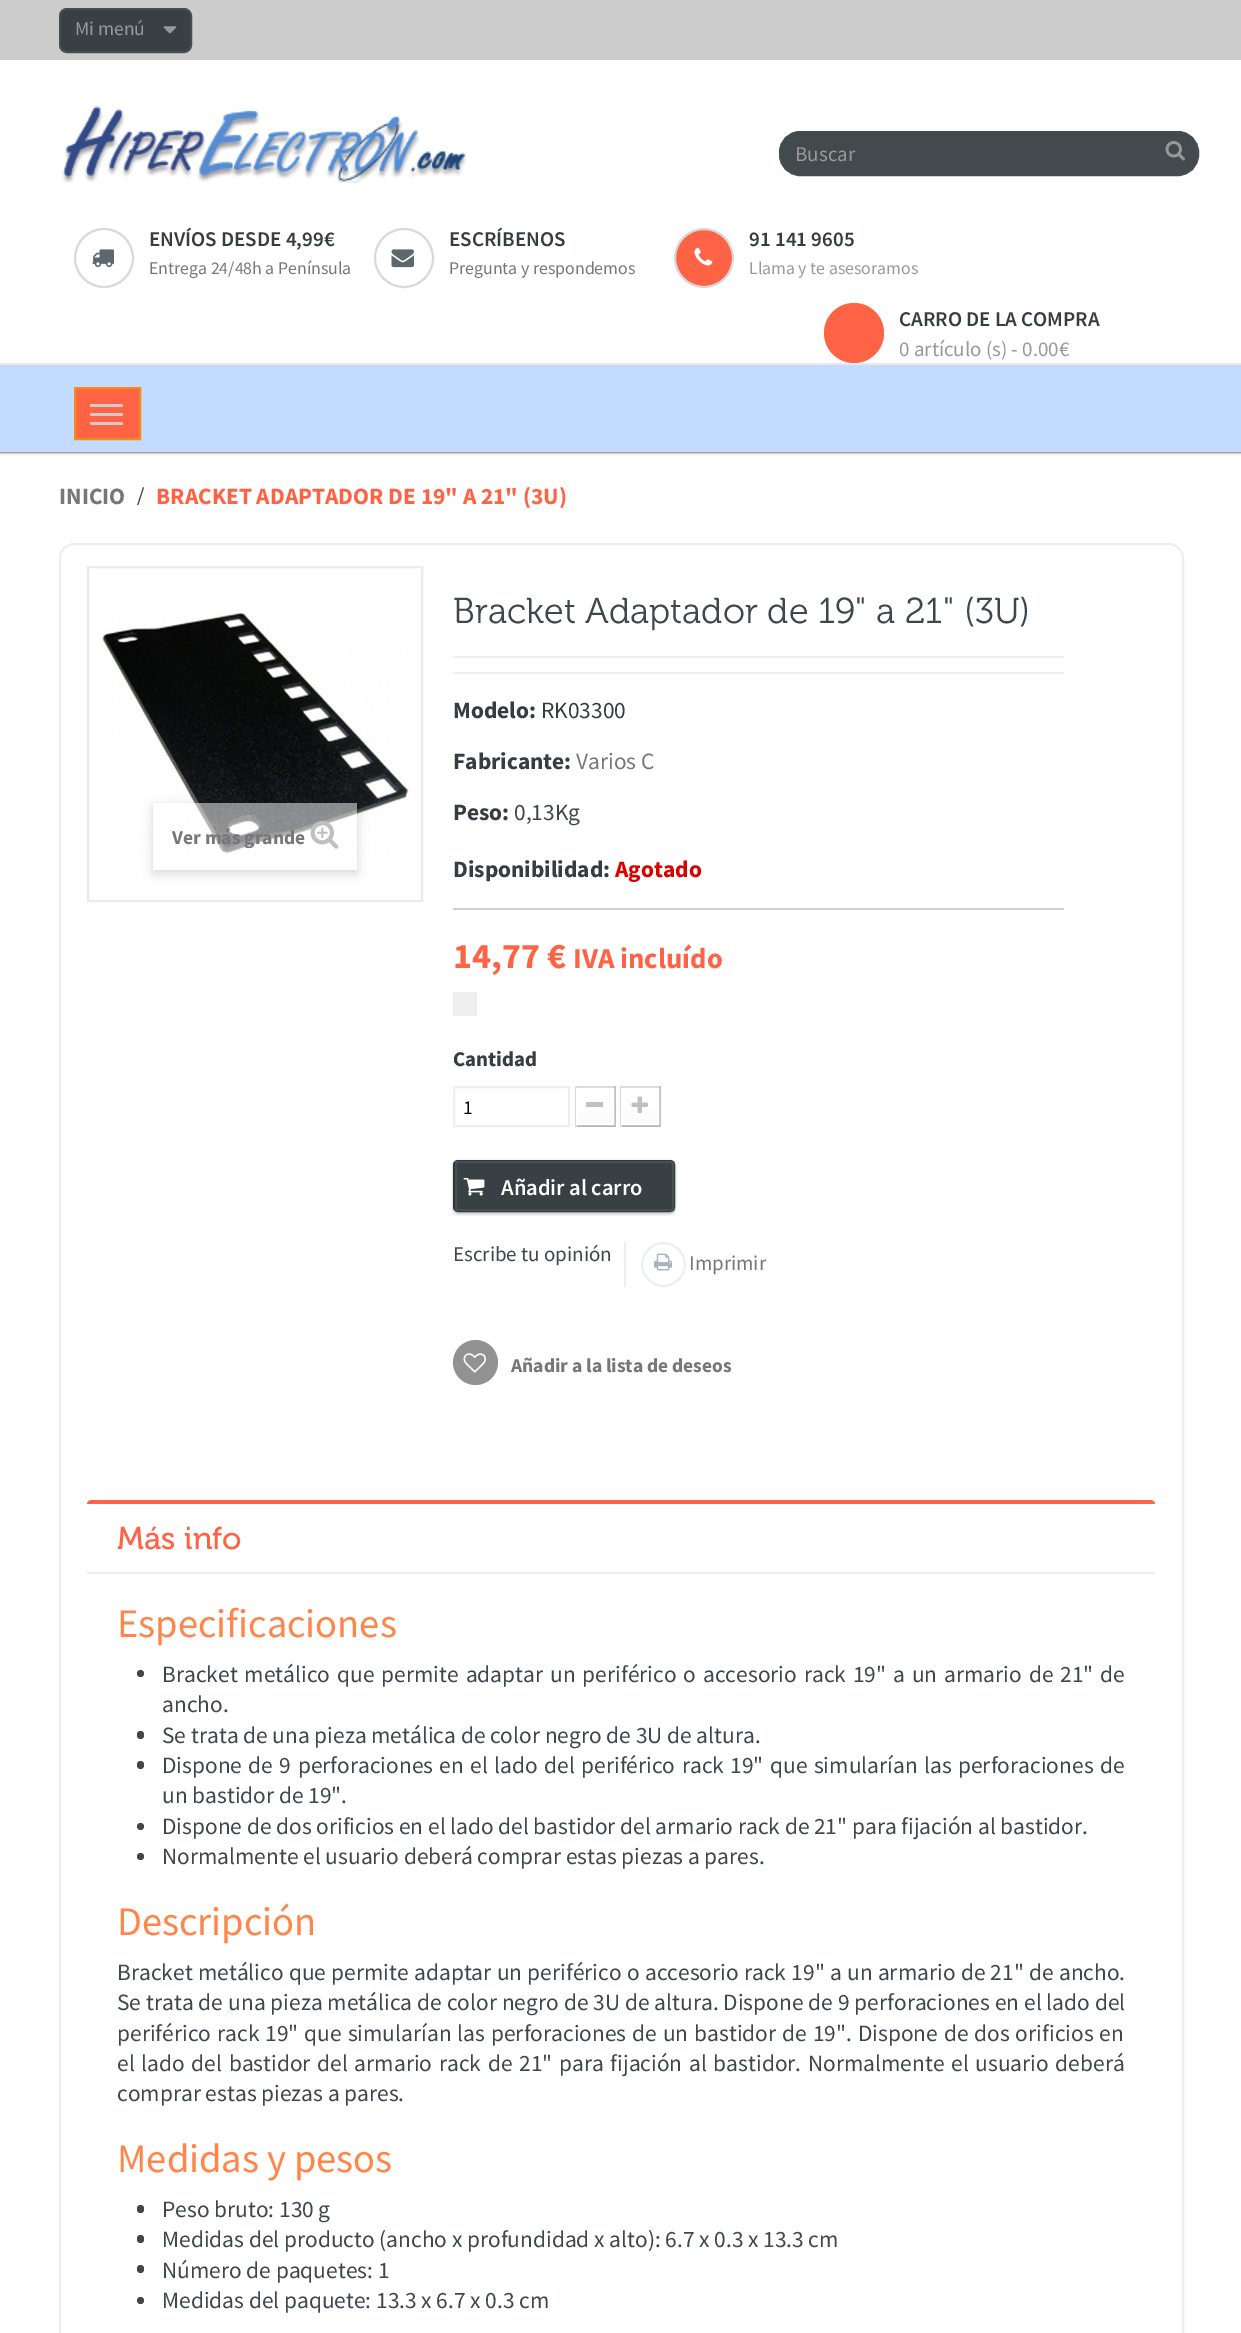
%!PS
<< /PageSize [1241 2333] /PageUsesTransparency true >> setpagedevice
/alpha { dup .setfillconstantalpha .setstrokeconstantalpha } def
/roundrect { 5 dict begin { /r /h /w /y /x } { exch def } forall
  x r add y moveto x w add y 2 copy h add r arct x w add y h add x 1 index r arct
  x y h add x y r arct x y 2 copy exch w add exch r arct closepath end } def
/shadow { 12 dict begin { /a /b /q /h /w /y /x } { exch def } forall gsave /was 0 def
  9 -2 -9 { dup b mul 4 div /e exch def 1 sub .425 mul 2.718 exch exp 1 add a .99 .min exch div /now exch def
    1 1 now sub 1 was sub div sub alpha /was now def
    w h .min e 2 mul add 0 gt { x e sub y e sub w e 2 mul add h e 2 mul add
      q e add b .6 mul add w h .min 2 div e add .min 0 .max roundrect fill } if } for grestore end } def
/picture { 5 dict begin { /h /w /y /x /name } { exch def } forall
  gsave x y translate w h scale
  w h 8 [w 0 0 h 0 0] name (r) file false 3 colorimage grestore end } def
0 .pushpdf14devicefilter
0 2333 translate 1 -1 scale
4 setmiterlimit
1 setgray
0 0 1241 2333 rectfill
0.071 setgray
0 0 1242 452 0 1.5 1 shadow
1 setgray
0 60 1241 303 rectfill
0.8 setgray
0 0 1241 60 rectfill
0.224 0.251 0.267 setrgbcolor
60 9 131 43 7 roundrect gsave fill grestore
0.271 0.302 0.314 setrgbcolor
2 setlinewidth
stroke
/SourceSansPro-Regular [19.5 0 0 -19.5 0 0] selectfont
0.576 0.6 0.616 setrgbcolor
75 35 moveto (Mi menú) show
(img1.rgb) 163 26 14 8 picture
(img2.rgb) 62 106 404 77 picture
0.263 0.29 0.306 setrgbcolor
780 132 418 43 20 roundrect gsave fill grestore
0.271 0.298 0.314 setrgbcolor
stroke
/SourceSansPro-Regular [21 0 0 -21 0 0] selectfont
0.6 setgray
795 161 moveto (Buscar) show
(img3.rgb) 1165 141 20 20 picture
0.851 setgray
newpath 104 258 29 0 360 arc closepath stroke
(img4.rgb) 92 249 22 19 picture
/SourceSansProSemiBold-SemiBold [21 0 0 -21 0 0] selectfont
0.208 0.239 0.255 setrgbcolor
149 246 moveto (ENVÍOS DESDE 4,99€) show
/SourceSansPro-Regular [17.8 0 0 -17.8 0 0] selectfont
0.467 setgray
149 274 moveto (Entrega 24/48h a Península) show
0.851 setgray
newpath 404 258 29 0 360 arc closepath stroke
(img5.rgb) 391 249 23 19 picture
/SourceSansProSemiBold-SemiBold [21 0 0 -21 0 0] selectfont
0.208 0.239 0.255 setrgbcolor
449 246 moveto (ESCRÍBENOS) show
/SourceSansPro-Regular [17.8 0 0 -17.8 0 0] selectfont
0.467 setgray
449 274 moveto (Pregunta y respondemos) show
1 0.388 0.275 setrgbcolor
newpath 704 258 29 0 360 arc closepath gsave fill grestore
0.851 setgray
stroke
(img6.rgb) 694 247 19 19 picture
/SourceSansProSemiBold-SemiBold [21 0 0 -21 0 0] selectfont
0.208 0.239 0.255 setrgbcolor
749 246 moveto (91 141 9605) show
/SourceSansPro-Regular [17.8 0 0 -17.8 0 0] selectfont
0.6 setgray
749 274 moveto (Llama y te asesoramos) show
1 0.388 0.275 setrgbcolor
newpath 854 333 30 0 360 arc closepath fill
/SourceSansProSemiBold-SemiBold [21 0 0 -21 0 0] selectfont
0.208 0.239 0.255 setrgbcolor
899 326 moveto (CARRO DE LA COMPRA) show
/SourceSansPro-Regular [21 0 0 -21 0 0] selectfont
0.6 setgray
899 356 moveto (0 artículo \(s\) - 0.00€) show
0.761 0.859 1 setrgbcolor
0 365 1241 87 rectfill
0.914 setgray
0 363 1241 2 rectfill
1 0.388 0.275 setrgbcolor
newpath 75 388 moveto 140 388 lineto 140 439 lineto 75 439 lineto closepath gsave fill grestore
0.969 0.541 0.078 setrgbcolor
stroke
0.8 setgray
90 404 33 3 1.5 roundrect fill
90 413 33 3 1.5 roundrect fill
90 422 33 3 1.5 roundrect fill
/SourceSansPro-Bold [23.4 0 0 -23.4 0 0] selectfont
0.467 setgray
59 504 moveto (INICIO) show
/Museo-Regular [22.5 0 0 -22.5 0 0] selectfont
0.243 0.278 0.294 setrgbcolor
137 504 moveto (/) show
/SourceSansPro-Bold [23.4 0 0 -23.4 0 0] selectfont
1 0.388 0.275 setrgbcolor
156 504 moveto (BRACKET ADAPTADOR DE 19" A 21" \(3U\)) show
0.922 0.933 0.949 setrgbcolor
60 544 1123 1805 14 roundrect stroke
0.918 setgray
88 567 334 334 rectstroke
(img7.rgb) 100 609 310 246 picture
gsave
newpath 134 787 moveto 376 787 lineto 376 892 lineto 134 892 lineto closepath 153 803 moveto 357 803 lineto 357 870 lineto 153 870 lineto closepath eoclip newpath
0 setgray
153 806 204 67 0 6 0.16 shadow
grestore
0.5 alpha
1 setgray
191 803 166 51 rectfill
/SourceSansPro-Bold [19.5 0 0 -19.5 0 0] selectfont
1 alpha
0.467 setgray
172 844 moveto (Ver más grande) show
(img8.rgb) 310 821 29 28 picture
0.922 0.933 0.949 setrgbcolor
453 656 611 2 rectfill
/Museo-Regular [36 0 0 -36 0 0] selectfont
0.243 0.278 0.294 setrgbcolor
453 623 moveto (Bracket Adaptador de 19" a 21" \(3U\)) show
0.922 0.933 0.949 setrgbcolor
453 672 611 2 rectfill
/SourceSansPro-Bold [23.4 0 0 -23.4 0 0] selectfont
0.208 0.239 0.255 setrgbcolor
453 718 moveto (Modelo:) show
/SourceSansPro-Regular [23.4 0 0 -23.4 0 0] selectfont
541 718 moveto (RK03300) show
/SourceSansPro-Bold [23.4 0 0 -23.4 0 0] selectfont
453 769 moveto (Fabricante:) show
/SourceSansPro-Regular [23.4 0 0 -23.4 0 0] selectfont
0.467 setgray
576 769 moveto (Varios C) show
/SourceSansPro-Bold [23.4 0 0 -23.4 0 0] selectfont
0.208 0.239 0.255 setrgbcolor
453 820 moveto (Peso:) show
/SourceSansPro-Regular [23.4 0 0 -23.4 0 0] selectfont
0.243 0.278 0.294 setrgbcolor
514 820 moveto (0,13Kg) show
/SourceSansPro-Bold [23.4 0 0 -23.4 0 0] selectfont
0.208 0.239 0.255 setrgbcolor
453 877 moveto (Disponibilidad:) show
0.867 0 0 setrgbcolor
615 877 moveto (Agotado) show
0.824 0.816 0.816 setrgbcolor
453 908 611 2 rectfill
/SourceSansPro-Bold [36 0 0 -36 0 0] selectfont
1 0.388 0.275 setrgbcolor
453 968 moveto (14,77 €) show
/SourceSansPro-Bold [28.75 0 0 -28.75 0 0] selectfont
573 968 moveto (IVA incluído) show
0.933 setgray
453 992 24 24 rectfill
/SourceSansPro-Bold [21 0 0 -21 0 0] selectfont
0.208 0.239 0.255 setrgbcolor
453 1066 moveto (Cantidad) show
0.922 0.933 0.949 setrgbcolor
454 1087 115 39 rectstroke
/SourceSansPro-Regular [19.5 0 0 -19.5 0 0] selectfont
0 setgray
463 1114 moveto (1) show
0.871 0.863 0.863 setrgbcolor
575 1086 40 2 rectfill
0.757 0.749 0.749 setrgbcolor
614 1086 2 41 rectfill
0.71 0.706 0.706 setrgbcolor
575 1125 40 2 rectfill
0.855 0.847 0.847 setrgbcolor
575 1086 2 41 rectfill
gsave newpath 578 1111 moveto 612 1111 lineto 612 1123 lineto 578 1123 lineto closepath clip newpath
<< /ShadingType 2 /ColorSpace /DeviceRGB /Coords [595 1089 595 1124] /Extend [true true] /Function << /FunctionType 2 /Domain [0 1] /C0 [1 1 1] /C1 [0.984 0.984 0.984] /N 1 >> >> shfill grestore
1 setgray
577 1089 36 35 rectstroke
0.753 setgray
586 1102 17 5 rectfill
0.871 0.863 0.863 setrgbcolor
620 1086 40 2 rectfill
0.757 0.749 0.749 setrgbcolor
659 1086 2 41 rectfill
0.71 0.706 0.706 setrgbcolor
620 1125 40 2 rectfill
0.855 0.847 0.847 setrgbcolor
620 1086 2 41 rectfill
gsave newpath 623 1111 moveto 657 1111 lineto 657 1123 lineto 623 1123 lineto closepath clip newpath
<< /ShadingType 2 /ColorSpace /DeviceRGB /Coords [640 1089 640 1124] /Extend [true true] /Function << /FunctionType 2 /Domain [0 1] /C0 [1 1 1] /C1 [0.984 0.984 0.984] /N 1 >> >> shfill grestore
1 setgray
622 1089 36 35 rectstroke
(img9.rgb) 631 1096 17 17 picture
0 setgray
453 1161 222 53 5 1.5 0.24 shadow
0.22 0.251 0.267 setrgbcolor
454 1161 220 50 4 roundrect gsave fill grestore
0.188 0.216 0.227 setrgbcolor
stroke
0.271 0.31 0.329 setrgbcolor
456 1162 217 48 rectstroke
(img10.rgb) 463 1177 22 19 picture
/SourceSansProSemiBold-SemiBold [22.5 0 0 -22.5 0 0] selectfont
1 setgray
501 1195 moveto (Añadir al carro) show
/SourceSansPro-Regular [21 0 0 -21 0 0] selectfont
0.243 0.278 0.294 setrgbcolor
453 1261 moveto (Escribe tu opinión) show
0.922 0.933 0.949 setrgbcolor
624 1242 2 45 rectfill
newpath 663.5 1264.5 21.5 0 360 arc closepath stroke
(img11.rgb) 654 1253 19 18 picture
0.467 setgray
689 1270 moveto (Imprimir) show
0.573 setgray
newpath 475.5 1362.5 22.5 0 360 arc closepath fill
(img12.rgb) 463 1353 23 20 picture
/SourceSansPro-Bold [19.5 0 0 -19.5 0 0] selectfont
0.467 setgray
511 1372 moveto (Añadir a la lista de deseos) show
1 0.388 0.275 setrgbcolor
newpath 92 1500 moveto 89 1500 87 1502 87 1504 curveto 1155 1504 lineto 1155 1502 1153 1500 1150 1500 curveto closepath fill
0.922 0.933 0.949 setrgbcolor
87 1572 1068 2 rectfill
/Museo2-Regular [31.5 0 0 -31.5 0 0] selectfont
1 0.388 0.275 setrgbcolor
117 1549 moveto (Más info) show
/SourceSansPro-Regular [40.5 0 0 -40.5 0 0] selectfont
1 0.522 0.294 setrgbcolor
117 1637 moveto (Especificaciones) show
0.243 0.278 0.294 setrgbcolor
newpath 140.5 1673.5 3.5 0 360 arc closepath fill
/SourceSansPro-Regular [23.4 0 0 -23.4 0 0] selectfont
162 1682 moveto 2.25 0 32 (Bracket metálico que permite adaptar un periférico o accesorio rack 19" a un armario de 21" de) widthshow
162 1712 moveto (ancho.) show
137 1731 7 8 3.5 roundrect fill
162 1743 moveto (Se trata de una pieza metálica de color negro de 3U de altura.) show
137 1761 7 8 3.5 roundrect fill
162 1773 moveto 1.75 0 32 (Dispone de 9 perforaciones en el lado del periférico rack 19" que simularían las perforaciones de) widthshow
162 1803 moveto (un bastidor de 19".) show
newpath 140.5 1826.5 3.5 0 360 arc closepath fill
162 1834 moveto (Dispone de dos orificios en el lado del bastidor del armario rack de 21" para fijación al bastidor.) show
newpath 140.5 1856.5 3.5 0 360 arc closepath fill
162 1864 moveto (Normalmente el usuario deberá comprar estas piezas a pares.) show
/SourceSansPro-Regular [40.5 0 0 -40.5 0 0] selectfont
1 0.522 0.294 setrgbcolor
117 1935 moveto (Descripción) show
/SourceSansPro-Regular [23.4 0 0 -23.4 0 0] selectfont
0.243 0.278 0.294 setrgbcolor
117 1980 moveto 0.6 0 32 (Bracket metálico que permite adaptar un periférico o accesorio rack 19" a un armario de 21" de ancho.) widthshow
117 2010 moveto 0.25 0 32 (Se trata de una pieza metálica de color negro de 3U de altura. Dispone de 9 perforaciones en el lado del) widthshow
117 2041 moveto 1.25 0 32 (periférico rack 19" que simularían las perforaciones de un bastidor de 19". Dispone de dos orificios en) widthshow
117 2071 moveto 2 0 32 (el lado del bastidor del armario rack de 21" para fijación al bastidor. Normalmente el usuario deberá) widthshow
117 2101 moveto (comprar estas piezas a pares.) show
/SourceSansPro-Regular [40.5 0 0 -40.5 0 0] selectfont
1 0.522 0.294 setrgbcolor
117 2172 moveto (Medidas y pesos) show
0.243 0.278 0.294 setrgbcolor
137 2205 7 8 3.5 roundrect fill
/SourceSansPro-Regular [23.4 0 0 -23.4 0 0] selectfont
162 2217 moveto (Peso bruto: 130 g) show
137 2235 7 8 3.5 roundrect fill
162 2247 moveto (Medidas del producto \(ancho x profundidad x alto\): 6.7 x 0.3 x 13.3 cm) show
137 2265 7 8 3.5 roundrect fill
162 2278 moveto (Número de paquetes: 1) show
newpath 140.5 2300.5 3.5 0 360 arc closepath fill
162 2308 moveto (Medidas del paquete: 13.3 x 6.7 x 0.3 cm) show
.poppdf14devicefilter showpage
